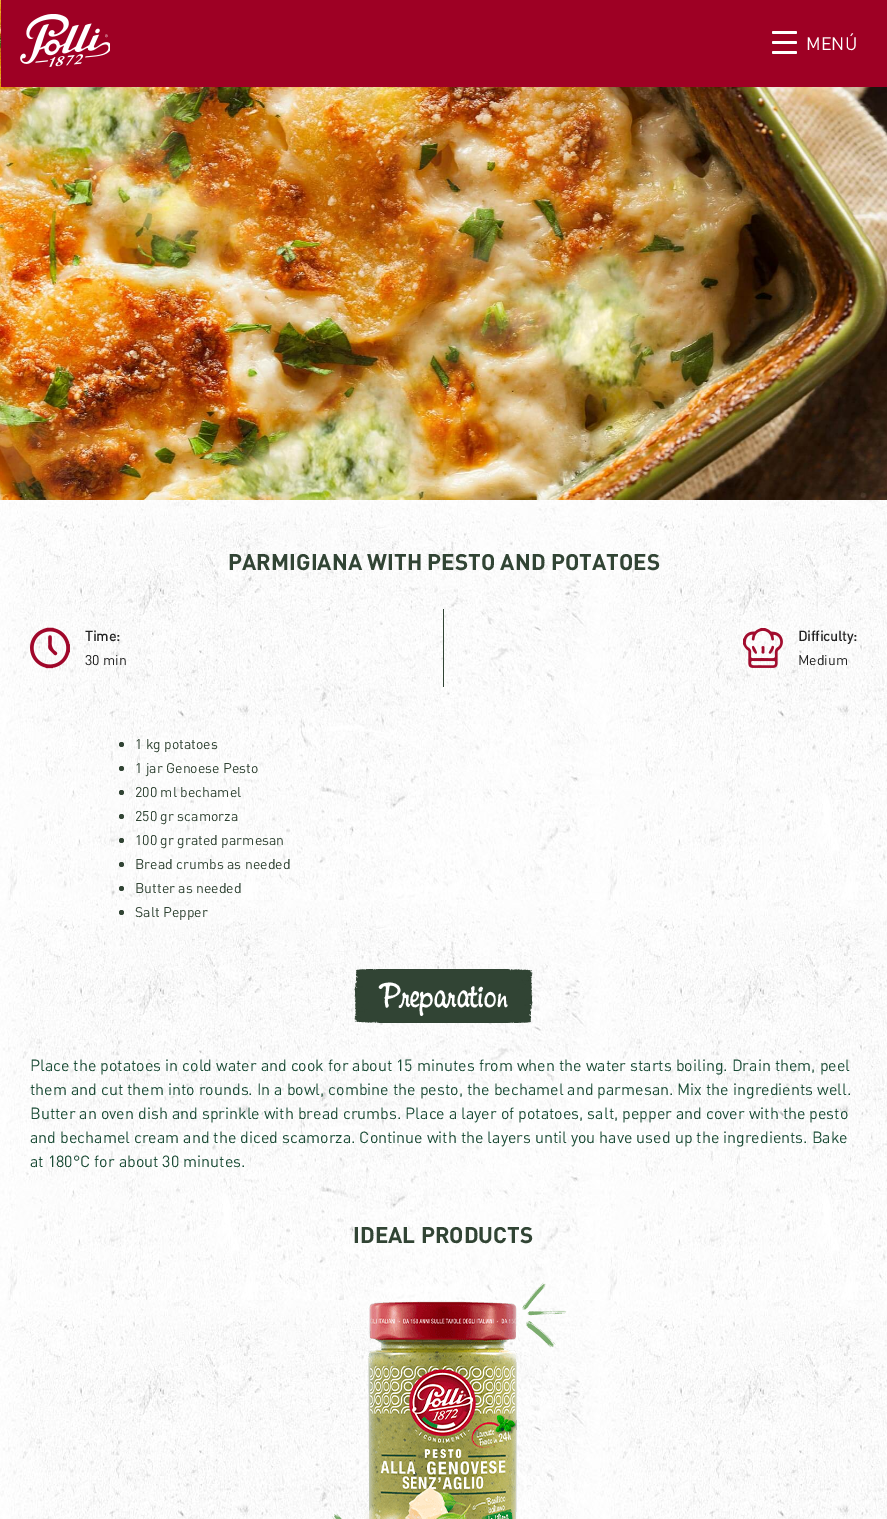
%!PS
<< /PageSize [887 1519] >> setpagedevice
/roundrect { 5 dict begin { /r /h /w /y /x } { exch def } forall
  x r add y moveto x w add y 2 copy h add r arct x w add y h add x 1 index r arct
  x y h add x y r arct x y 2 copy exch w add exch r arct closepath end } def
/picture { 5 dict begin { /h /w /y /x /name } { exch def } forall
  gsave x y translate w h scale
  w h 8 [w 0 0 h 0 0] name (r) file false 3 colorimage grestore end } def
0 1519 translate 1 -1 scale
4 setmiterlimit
1 setgray
0 0 887 1519 rectfill
(img3.rgb) 0 0 887 500 picture
0.62 0 0.141 setrgbcolor
1 0 886 87 rectfill
(img1.rgb) 20 14 90 53 picture
1 setgray
772 31 25 3 1.5 roundrect fill
772 41 25 3 1.5 roundrect fill
772 51 25 3 1.5 roundrect fill
/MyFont-Regular [18 0 0 -18 0 0] selectfont
806 50 moveto (MENÚ) show
(img2.rgb) 0 500 887 30 picture
(img4.rgb) 0 500 887 1019 picture
/MyFont-Bold [22.4 0 0 -22.4 0 0] selectfont
0.192 0.267 0.204 setrgbcolor
228 570 moveto (PARMIGIANA WITH PESTO AND POTATOES) show
443 609 1 78 rectfill
(img5.rgb) 30 627 40 42 picture
/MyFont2-Bold [14 0 0 -14 0 0] selectfont
0.133 setgray
85 641 moveto (Time:) show
/MyFont-Regular [14 0 0 -14 0 0] selectfont
85 665 moveto (30 min) show
(img6.rgb) 743 628 40 40 picture
/MyFont2-Bold [14 0 0 -14 0 0] selectfont
798 641 moveto (Difficulty:) show
/MyFont-Regular [14 0 0 -14 0 0] selectfont
798 665 moveto (Medium) show
0.192 0.267 0.204 setrgbcolor
newpath 121.5 744.5 2.5 0 360 arc closepath fill
135 749 moveto (1 kg potatoes) show
newpath 121.5 768.5 2.5 0 360 arc closepath fill
135 773 moveto (1 jar Genoese Pesto) show
newpath 121.5 792.5 2.5 0 360 arc closepath fill
135 797 moveto (200 ml bechamel) show
newpath 121.5 816.5 2.5 0 360 arc closepath fill
135 821 moveto (250 gr scamorza) show
newpath 121.5 840.5 2.5 0 360 arc closepath fill
135 845 moveto (100 gr grated parmesan) show
newpath 121.5 864.5 2.5 0 360 arc closepath fill
135 869 moveto (Bread crumbs as needed) show
newpath 121.5 888.5 2.5 0 360 arc closepath fill
135 893 moveto (Butter as needed) show
newpath 121.5 912.5 2.5 0 360 arc closepath fill
135 917 moveto (Salt Pepper) show
379 969 129 54 rectfill
(img7.rgb) 354 969 25 54 picture
/MyFont2-Regular [36 0 0 -36 0 0] selectfont
1 setgray
379 1007 moveto (Preparation) show
(img8.rgb) 508 969 25 54 picture
/MyFont-Regular [16 0 0 -16 0 0] selectfont
0.102 0.294 0.208 setrgbcolor
30 1071 moveto (Place the potatoes in cold water and cook for about 15 minutes from when the water starts boiling. Drain them, peel) show
30 1095 moveto (them and cut them into rounds. In a bowl, combine the pesto, the bechamel and parmesan. Mix the ingredients well.) show
30 1119 moveto (Butter an oven dish and sprinkle with bread crumbs. Place a layer of potatoes, salt, pepper and cover with the pesto) show
30 1143 moveto (and bechamel cream and the diced scamorza. Continue with the layers until you have used up the ingredients. Bake) show
30 1167 moveto (at 180°C for about 30 minutes.) show
/MyFont-Bold [22.4 0 0 -22.4 0 0] selectfont
0.192 0.267 0.204 setrgbcolor
353 1243 moveto (IDEAL PRODUCTS) show
(img9.rgb) 332 1282 235 237 picture
showpage
